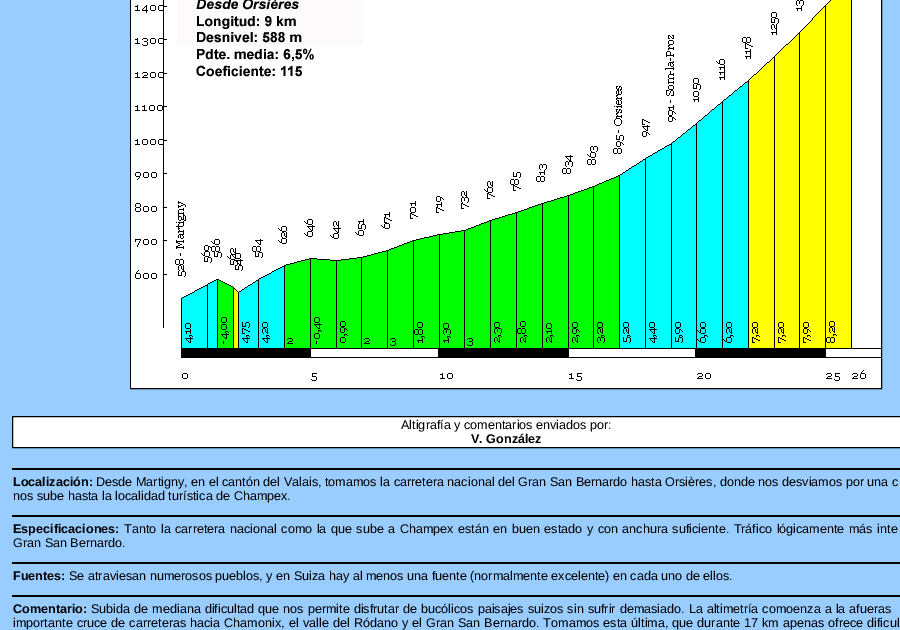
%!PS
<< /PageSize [900 630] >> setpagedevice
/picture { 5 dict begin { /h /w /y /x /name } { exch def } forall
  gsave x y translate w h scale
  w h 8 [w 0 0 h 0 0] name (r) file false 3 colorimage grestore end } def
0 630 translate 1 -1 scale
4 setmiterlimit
0.6 0.8 1 setrgbcolor
0 0 900 630 rectfill
0 setgray
130.5 -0.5 751 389 rectstroke
(img1.rgb) 131 0 750 388 picture
1 setgray
newpath 12.5 416.5 moveto 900.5 416.5 lineto 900.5 447.5 lineto 12.5 447.5 lineto closepath gsave fill grestore
0 setgray
stroke
/LiberationSans-Regular [12.6 0 0 -12.6 0 0] selectfont
401 429 moveto (Altigrafía y comentarios enviados por:) show
/LiberationSans-Bold [12.6 0 0 -12.6 0 0] selectfont
471 443 moveto (V. González) show
12 468 888 2 rectfill
13 486 moveto (Localización:) show
/LiberationSans-Regular [12.6 0 0 -12.6 0 0] selectfont
96 486 moveto (Desde Martigny, en el cantón del Valais, tomamos la carretera nacional del Gran San Bernardo hasta Orsières, donde nos desviamos por una c) show
13 500 moveto (nos sube hasta la localidad turística de Champex.) show
12 515 888 2 rectfill
/LiberationSans-Bold [12.6 0 0 -12.6 0 0] selectfont
13 533 moveto (Especificaciones:) show
/LiberationSans-Regular [12.6 0 0 -12.6 0 0] selectfont
124 533 moveto 1 0 32 (Tanto la carretera nacional como la que sube a Champex están en buen estado y con anchura suficiente. Tráfico lógicamente más inte) widthshow
13 547 moveto (Gran San Bernardo.) show
12 562 888 2 rectfill
/LiberationSans-Bold [12.6 0 0 -12.6 0 0] selectfont
13 580 moveto (Fuentes:) show
/LiberationSans-Regular [12.6 0 0 -12.6 0 0] selectfont
69 580 moveto (Se atraviesan numerosos pueblos, y en Suiza hay al menos una fuente \(normalmente excelente\) en cada uno de ellos.) show
12 595 888 2 rectfill
/LiberationSans-Bold [12.6 0 0 -12.6 0 0] selectfont
13 613 moveto (Comentario:) show
/LiberationSans-Regular [12.6 0 0 -12.6 0 0] selectfont
91 613 moveto 0.5 0 32 (Subida de mediana dificultad que nos permite disfrutar de bucólicos paisajes suizos sin sufrir demasiado. La altimetría comoenza a la afueras) widthshow
13 627 moveto 0.5 0 32 (importante cruce de carreteras hacia Chamonix,) widthshow
289 627 moveto 0.5 0 32 (el valle del Ródano y el Gran San Bernardo. Tomamos esta última, que durante 17 km apenas ofrece dificul) widthshow
showpage
